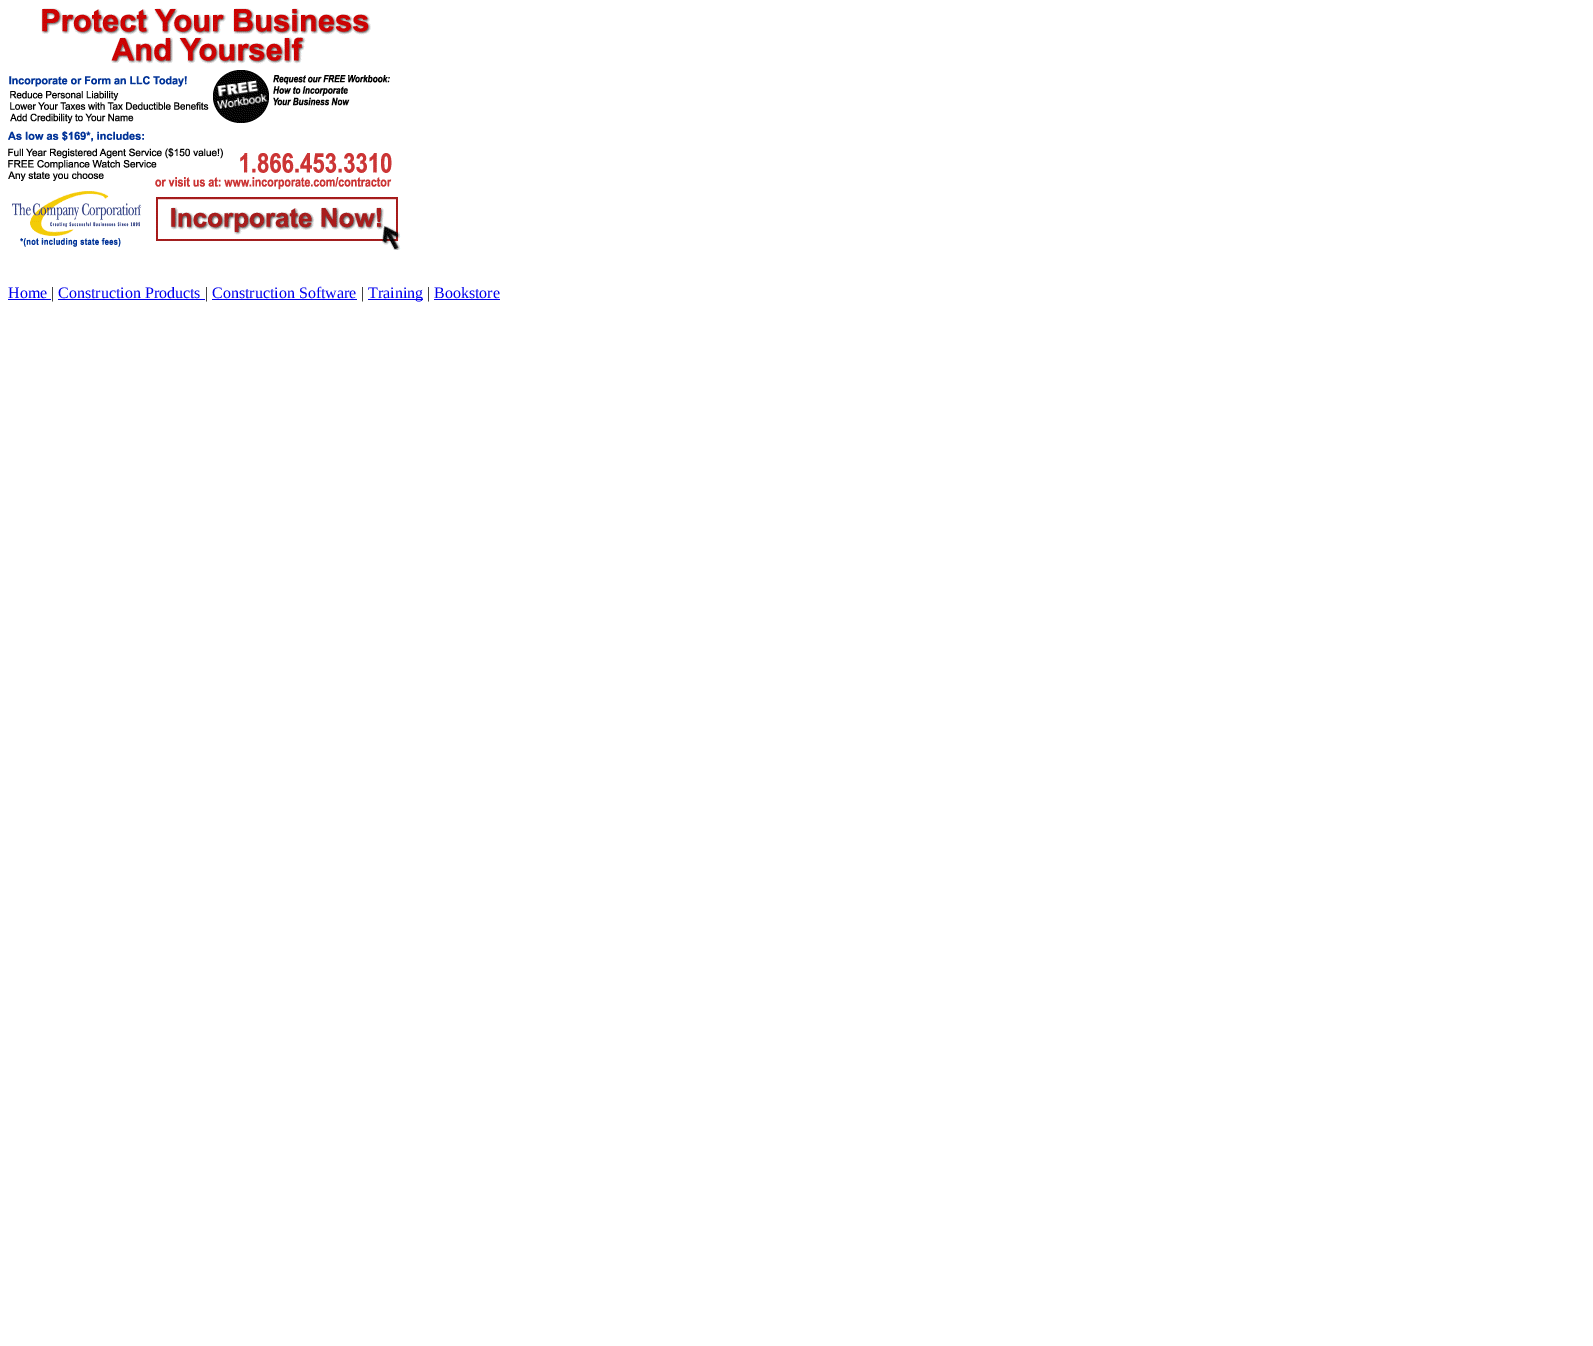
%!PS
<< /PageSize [1593 1346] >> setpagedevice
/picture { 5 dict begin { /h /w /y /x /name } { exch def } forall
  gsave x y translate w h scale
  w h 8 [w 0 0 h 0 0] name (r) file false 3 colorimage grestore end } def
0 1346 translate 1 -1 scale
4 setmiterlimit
1 setgray
0 0 1593 1346 rectfill
(img1.rgb) 8 8 393 242 picture
/LiberationSerif-Regular [16 0 0 -16 0 0] selectfont
0 0 0.933 setrgbcolor
8 298 moveto (Home) show
8 299 43 1 rectfill
0 setgray
51 298 moveto (|) show
0 0 0.933 setrgbcolor
58 298 moveto (Construction Products) show
58 299 147 1 rectfill
0 setgray
205 298 moveto (|) show
0 0 0.933 setrgbcolor
212 298 moveto (Construction Software) show
212 299 145 1 rectfill
0 setgray
361 298 moveto (|) show
0 0 0.933 setrgbcolor
368 299 55 1 rectfill
368 298 moveto (Training) show
0 setgray
427 298 moveto (|) show
0 0 0.933 setrgbcolor
434 298 moveto (Bookstore) show
434 299 66 1 rectfill
showpage
